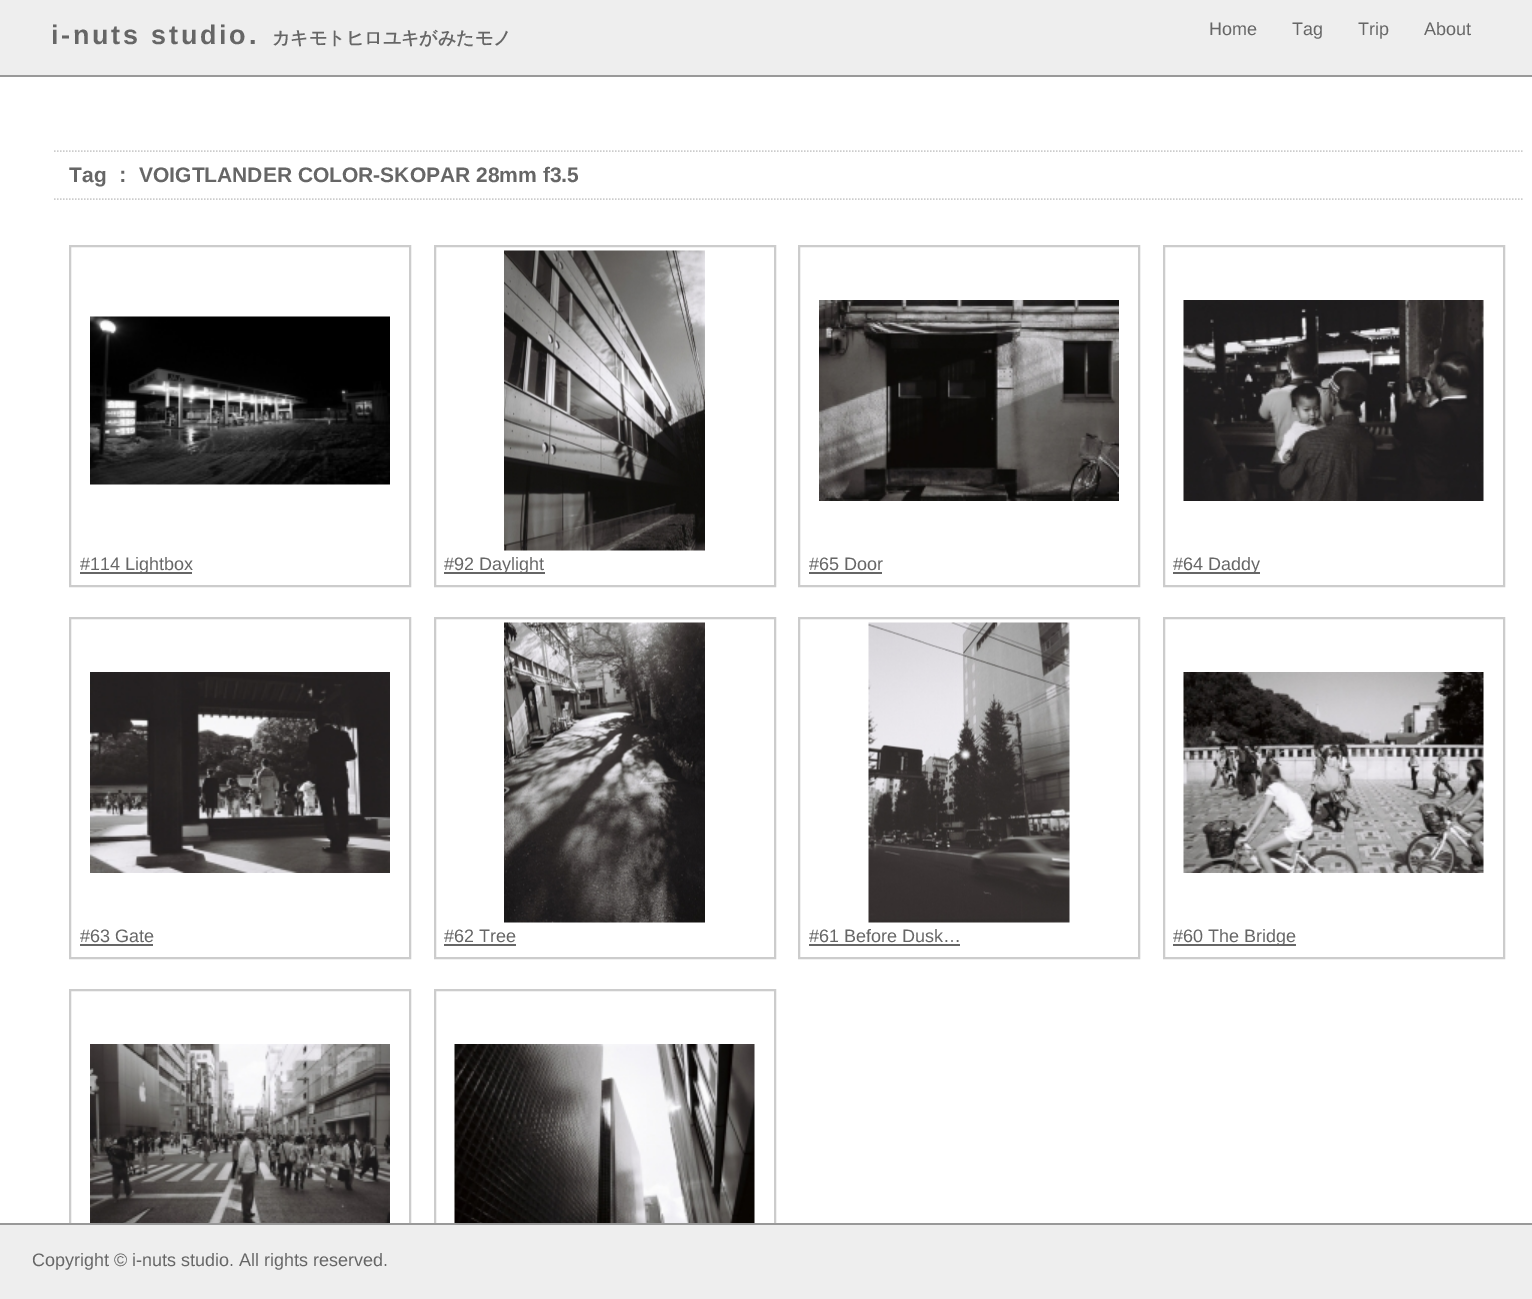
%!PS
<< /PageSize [1532 1299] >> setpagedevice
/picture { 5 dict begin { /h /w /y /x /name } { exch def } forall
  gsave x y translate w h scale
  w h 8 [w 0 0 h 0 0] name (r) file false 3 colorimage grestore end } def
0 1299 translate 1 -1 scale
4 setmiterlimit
1 setgray
0 0 1532 1299 rectfill
0.933 setgray
0 0 1532 75 rectfill
0.6 setgray
0 75 1532 2 rectfill
/LiberationSans-Bold [27 0 0 -27 0 0] selectfont
0.4 setgray
51 44 moveto 2.75 0 (i-nuts studio.) ashow
/WenQuanYiZenHei-Bold [18 0 0 -18 0 0] selectfont
272 44 moveto (カキモトヒロユキがみたモノ) show
/LiberationSans-Regular [18 0 0 -18 0 0] selectfont
1209 35 moveto (Home) show
1292 35 moveto (Tag) show
1358 35 moveto (Trip) show
1424 35 moveto (About) show
0.8 setgray
1.5 setlinewidth
[1.5 1.5] 0 setdash
newpath 54 151 moveto 1524 151 lineto stroke
newpath 54 199 moveto 1524 199 lineto stroke
/LiberationSans-Bold [21 0 0 -21 0 0] selectfont
0.4 setgray
69 182 moveto (Tag) show
/WenQuanYiZenHei-Bold [21 0 0 -21 0 0] selectfont
112 182 moveto (：) show
/LiberationSans-Bold [21 0 0 -21 0 0] selectfont
139 182 moveto (VOIGTLANDER COLOR-SKOPAR 28mm f3.5) show
0.8 setgray
2 setlinewidth
[] 0 setdash
70 246 340 340 rectstroke
(img1.rgb) 90 316 300 169 picture
0.4 setgray
80 572 112 2 rectfill
/LiberationSans-Regular [18 0 0 -18 0 0] selectfont
80 570 moveto (#114 Lightbox) show
0.8 setgray
435 246 340 340 rectstroke
(img2.rgb) 504 250 201 301 picture
0.4 setgray
444 572 101 2 rectfill
444 570 moveto (#92 Daylight) show
0.8 setgray
799 246 340 340 rectstroke
(img3.rgb) 819 300 300 201 picture
0.4 setgray
809 570 moveto (#65 Door) show
809 572 73 2 rectfill
0.8 setgray
1164 246 340 340 rectstroke
(img4.rgb) 1183 300 301 201 picture
0.4 setgray
1173 572 87 2 rectfill
1173 570 moveto (#64 Daddy) show
0.8 setgray
70 618 340 340 rectstroke
(img5.rgb) 90 672 300 201 picture
0.4 setgray
80 942 moveto (#63 Gate) show
80 944 73 2 rectfill
0.8 setgray
435 618 340 340 rectstroke
(img6.rgb) 504 622 201 301 picture
0.4 setgray
444 942 moveto (#62 Tree) show
444 944 72 2 rectfill
0.8 setgray
799 618 340 340 rectstroke
(img7.rgb) 868 622 202 301 picture
0.4 setgray
809 942 moveto (#61 Before Dusk…) show
809 944 151 2 rectfill
0.8 setgray
1164 618 340 340 rectstroke
(img8.rgb) 1183 672 301 201 picture
0.4 setgray
1173 944 123 2 rectfill
1173 942 moveto (#60 The Bridge) show
0.8 setgray
70 990 340 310 rectstroke
(img9.rgb) 90 1044 300 179 picture
435 990 340 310 rectstroke
(img10.rgb) 454 1044 301 179 picture
0.933 setgray
0 1225 1532 74 rectfill
0.6 setgray
0 1223 1532 2 rectfill
0.4 setgray
32 1266 moveto (Copyright © i-nuts studio. All rights reserved.) show
showpage
